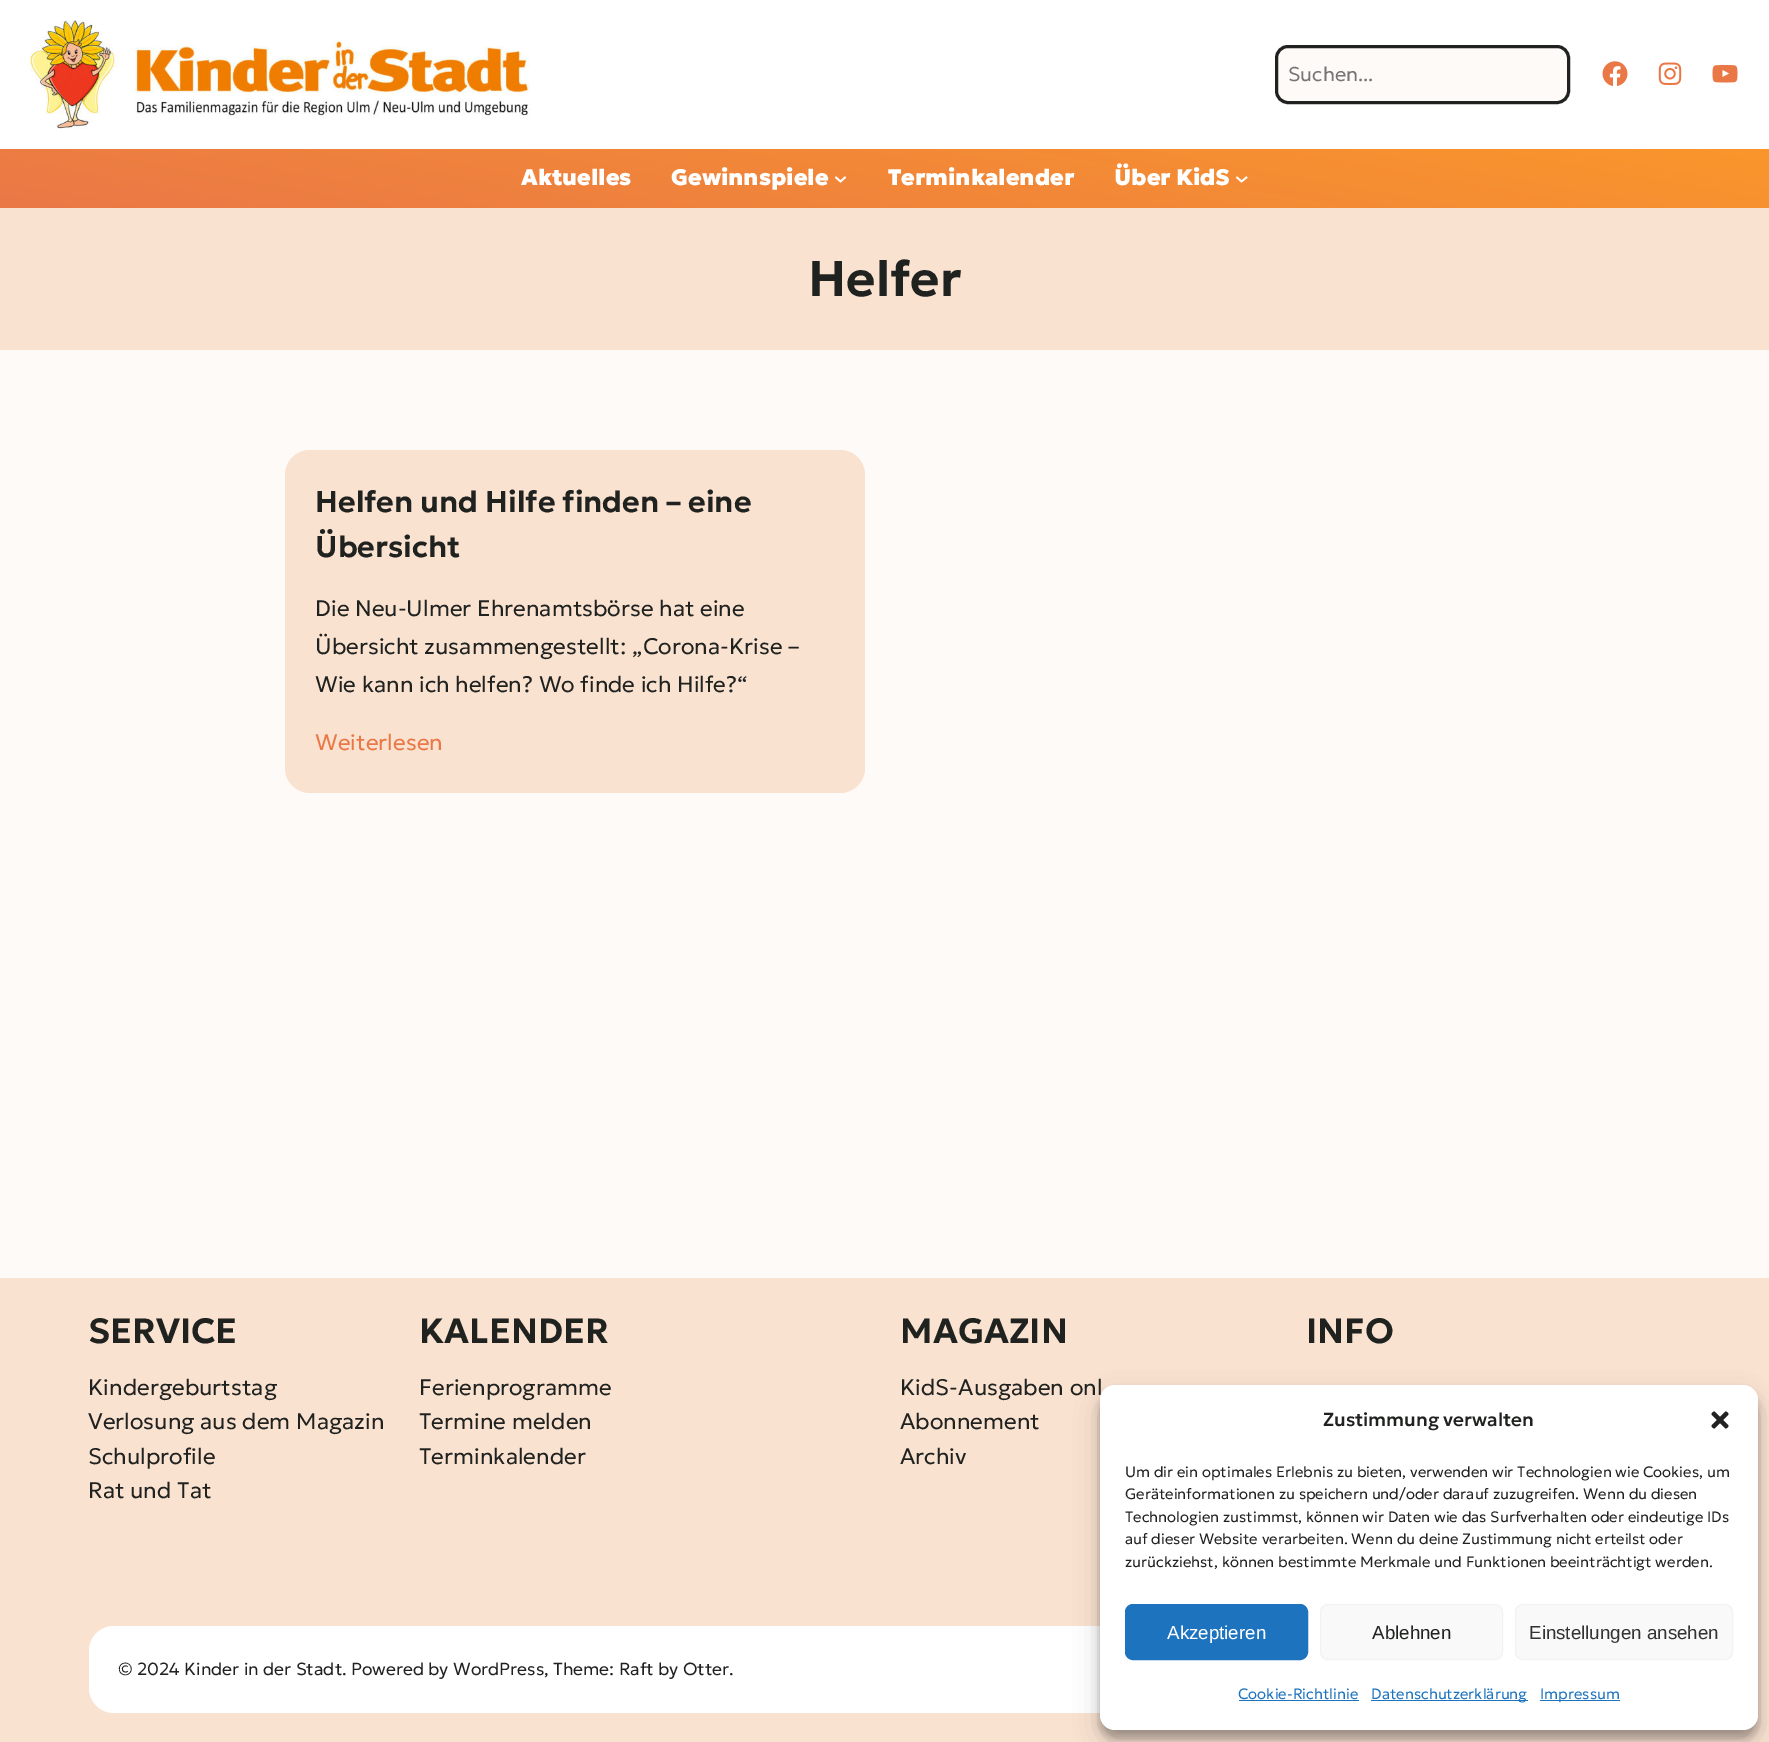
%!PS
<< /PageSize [1769 1742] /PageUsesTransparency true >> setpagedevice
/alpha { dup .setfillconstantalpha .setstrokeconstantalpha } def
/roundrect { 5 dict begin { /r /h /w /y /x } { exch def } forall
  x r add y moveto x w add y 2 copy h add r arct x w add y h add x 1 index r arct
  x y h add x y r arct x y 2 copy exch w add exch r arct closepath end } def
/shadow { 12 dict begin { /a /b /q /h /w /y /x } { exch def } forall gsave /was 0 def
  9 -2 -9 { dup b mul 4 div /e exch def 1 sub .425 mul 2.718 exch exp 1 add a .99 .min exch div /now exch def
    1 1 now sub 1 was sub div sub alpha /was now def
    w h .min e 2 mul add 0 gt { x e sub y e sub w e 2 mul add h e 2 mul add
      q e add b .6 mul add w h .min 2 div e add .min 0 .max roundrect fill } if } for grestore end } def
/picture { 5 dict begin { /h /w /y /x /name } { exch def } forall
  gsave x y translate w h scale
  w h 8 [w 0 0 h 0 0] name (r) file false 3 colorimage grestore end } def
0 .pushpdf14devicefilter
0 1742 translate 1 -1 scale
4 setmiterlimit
0.996 0.98 0.969 setrgbcolor
0 0 1769 1742 rectfill
1 setgray
0 0 1769 149 rectfill
(img1.rgb) 30 20 500 109 picture
0.996 0.98 0.969 setrgbcolor
1276.5 46.5 292 56 11.5 roundrect gsave fill grestore
0.125 0.133 0.125 setrgbcolor
3 setlinewidth
stroke
/Geologica-Light [20 0 0 -20 0 0] selectfont
0.459 setgray
1288 81 moveto (Suchen...) show
(img2.rgb) 1602 61 26 26 picture
(img3.rgb) 1658 62 24 23 picture
(img4.rgb) 1712 64 26 19 picture
gsave newpath 0 149 moveto 1769 149 lineto 1769 208 lineto 0 208 lineto closepath clip newpath
<< /ShadingType 2 /ColorSpace /DeviceRGB /Coords [853 358 917 -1.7] /Extend [true true] /Function << /FunctionType 2 /Domain [0 1] /C0 [0.918 0.471 0.278] /C1 [0.98 0.588 0.169] /N 1 >> >> shfill grestore
/Geologica-Black [22.5 0 0 -22.5 0 0] selectfont
1 setgray
521 185 moveto (Aktuelles) show
671 185 moveto (Gewinnspiele) show
1.7 setlinewidth
newpath 835.5 177 moveto 840.5 181.5 lineto 845.5 177 lineto stroke
888 185 moveto (Terminkalender) show
1114 185 moveto (Über KidS) show
newpath 1236.5 177 moveto 1241.5 181.5 lineto 1247 177 lineto stroke
0.98 0.886 0.82 setrgbcolor
0 208 1769 142 rectfill
/Geologica-SemiBold [50 0 0 -50 0 0] selectfont
0.125 0.133 0.125 setrgbcolor
808 296 moveto (Helfer) show
0.98 0.886 0.82 setrgbcolor
285 450 580 343 25 roundrect fill
/Geologica-SemiBold [30 0 0 -30 0 0] selectfont
0.125 0.133 0.125 setrgbcolor
315 512 moveto (Helfen und Hilfe finden – eine) show
315 557 moveto (Übersicht) show
/Geologica-Light [22.5 0 0 -22.5 0 0] selectfont
315 616 moveto (Die Neu-Ulmer Ehrenamtsbörse hat eine) show
315 654 moveto (Übersicht zusammengestellt: „Corona-Krise –) show
315 692 moveto (Wie kann ich helfen? Wo finde ich Hilfe?“) show
0.918 0.471 0.278 setrgbcolor
315 750 moveto (Weiterlesen) show
0.98 0.886 0.82 setrgbcolor
0 1278 1769 464 rectfill
/Geologica-SemiBold [35 0 0 -35 0 0] selectfont
0.125 0.133 0.125 setrgbcolor
88 1343 moveto (SERVICE) show
/Geologica-Light [22.5 0 0 -22.5 0 0] selectfont
88 1395 moveto (Kindergeburtstag) show
88 1429 moveto (Verlosung aus dem Magazin) show
88 1464 moveto (Schulprofile) show
88 1498 moveto (Rat und Tat) show
/Geologica-SemiBold [35 0 0 -35 0 0] selectfont
419 1343 moveto (KALENDER) show
/Geologica-Light [22.5 0 0 -22.5 0 0] selectfont
419 1395 moveto (Ferienprogramme) show
419 1429 moveto (Termine melden) show
419 1464 moveto (Terminkalender) show
/Geologica-SemiBold [35 0 0 -35 0 0] selectfont
900 1343 moveto (MAGAZIN) show
/Geologica-Light [22.5 0 0 -22.5 0 0] selectfont
900 1395 moveto (KidS-Ausgaben onl) show
900 1429 moveto (Abonnement) show
900 1464 moveto (Archiv) show
/Geologica-SemiBold [35 0 0 -35 0 0] selectfont
1306 1343 moveto (INFO) show
1 setgray
89 1626 1592 87 25 roundrect fill
/Geologica-Light [17.5 0 0 -17.5 0 0] selectfont
0.125 0.133 0.125 setrgbcolor
118 1675 moveto (© 2024 Kinder in der Stadt. Powered by WordPress, Theme: Raft by Otter.) show
0 setgray
1100 1393 658 345 15 4 0.23 shadow
1100 1398 658 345 15 12.5 0.19 shadow
1 setgray
1100 1385 658 345 15 roundrect fill
/Geologica-Medium [18.75 0 0 -18.75 0 0] selectfont
0.125 0.133 0.125 setrgbcolor
1323 1426 moveto (Zustimmung verwalten) show
(img5.rgb) 1711 1411 18 18 picture
/Geologica-Light [15 0 0 -15 0 0] selectfont
1125 1477 moveto (Um dir ein optimales Erlebnis zu bieten, verwenden wir Technologien wie Cookies, um) show
1125 1499 moveto (Geräteinformationen zu speichern und/oder darauf zuzugreifen. Wenn du diesen) show
1125 1522 moveto (Technologien zustimmst, können wir Daten wie das Surfverhalten oder eindeutige IDs) show
1125 1544 moveto (auf dieser Website verarbeiten. Wenn du deine Zustimmung nicht erteilst oder) show
1125 1567 moveto (zurückziehst, können bestimmte Merkmale und Funktionen beeinträchtigt werden.) show
0.118 0.451 0.745 setrgbcolor
1125.5 1604.5 182 55 7.5 roundrect gsave fill grestore
1 setlinewidth
stroke
/LiberationSans-Regular [18.75 0 0 -18.75 0 0] selectfont
1 setgray
1167 1639 moveto (Akzeptieren) show
0.976 setgray
1320.5 1604.5 182 55 7.5 roundrect gsave fill grestore
0.949 setgray
stroke
0.125 0.133 0.125 setrgbcolor
1372 1639 moveto (Ablehnen) show
0.976 setgray
1515.5 1604.5 217 55 7.5 roundrect gsave fill grestore
0.949 setgray
stroke
0.2 setgray
1529 1639 moveto (Einstellungen ansehen) show
/Geologica-Light [15 0 0 -15 0 0] selectfont
0.118 0.451 0.745 setrgbcolor
1238 1699 moveto (Cookie-Richtlinie) show
1239 1700 120 1 rectfill
1371 1700 157 1 rectfill
1371 1699 moveto (Datenschutzerklärung) show
1540 1700 80 1 rectfill
1540 1699 moveto (Impressum) show
.poppdf14devicefilter showpage
